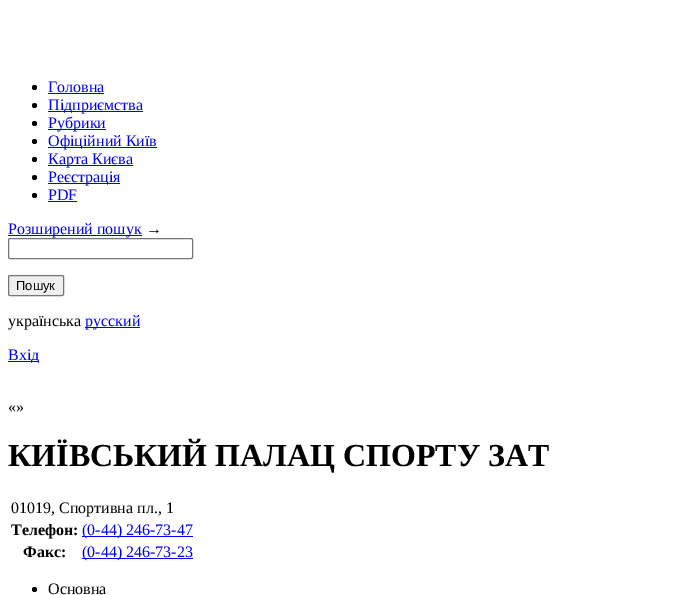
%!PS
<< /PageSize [695 595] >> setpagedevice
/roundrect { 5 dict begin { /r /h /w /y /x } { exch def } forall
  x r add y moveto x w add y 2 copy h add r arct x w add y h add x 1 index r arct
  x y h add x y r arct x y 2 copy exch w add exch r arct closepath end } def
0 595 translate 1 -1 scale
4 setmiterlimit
1 setgray
0 0 695 595 rectfill
0 setgray
newpath 34.5 87.5 2.5 0 360 arc closepath fill
/LiberationSerif-Regular [16 0 0 -16 0 0] selectfont
0 0 0.933 setrgbcolor
48 92 moveto (Головна) show
48 93 56 1 rectfill
0 setgray
newpath 34.5 105.5 2.5 0 360 arc closepath fill
0 0 0.933 setrgbcolor
48 111 95 1 rectfill
48 110 moveto (Підприємства) show
0 setgray
newpath 34.5 123.5 2.5 0 360 arc closepath fill
0 0 0.933 setrgbcolor
48 129 58 1 rectfill
48 128 moveto (Рубрики) show
0 setgray
newpath 34.5 141.5 2.5 0 360 arc closepath fill
0 0 0.933 setrgbcolor
48 147 109 1 rectfill
48 146 moveto (Офіційний Київ) show
0 setgray
newpath 34.5 159.5 2.5 0 360 arc closepath fill
0 0 0.933 setrgbcolor
48 165 85 1 rectfill
48 164 moveto (Карта Києва) show
0 setgray
newpath 34.5 177.5 2.5 0 360 arc closepath fill
0 0 0.933 setrgbcolor
48 183 72 1 rectfill
48 182 moveto (Реєстрація) show
0 setgray
newpath 34.5 195.5 2.5 0 360 arc closepath fill
0 0 0.933 setrgbcolor
48 200 moveto (PDF) show
48 201 29 1 rectfill
8 235 134 1 rectfill
8 234 moveto (Розширений пошук) show
0 setgray
146 234 moveto (→) show
0.463 setgray
8.5 238.5 184 20 1.5 roundrect stroke
0.937 setgray
8.5 275.5 55 20 1.5 roundrect gsave fill grestore
0.463 setgray
stroke
/LiberationSans-Regular [13 0 0 -13 0 0] selectfont
0 setgray
16 290 moveto (Пошук) show
/LiberationSerif-Regular [16 0 0 -16 0 0] selectfont
8 326 moveto (українська) show
0 0 0.933 setrgbcolor
85 327 55 1 rectfill
85 326 moveto (русский) show
8 361 31 1 rectfill
8 360 moveto (Вхід) show
0 setgray
8 412 moveto («») show
/LiberationSerif-Bold [32 0 0 -32 0 0] selectfont
8 466 moveto (КИЇВСЬКИЙ ПАЛАЦ СПОРТУ ЗАТ) show
/LiberationSerif-Regular [16 0 0 -16 0 0] selectfont
11 513 moveto (01019, Спортивна пл., 1) show
/LiberationSerif-Bold [16 0 0 -16 0 0] selectfont
11 535 moveto (Телефон:) show
0 0 0.933 setrgbcolor
82 536 111 1 rectfill
/LiberationSerif-Regular [16 0 0 -16 0 0] selectfont
82 535 moveto (\(0-44\) 246-73-47) show
/LiberationSerif-Bold [16 0 0 -16 0 0] selectfont
0 setgray
23 557 moveto (Факс:) show
0 0 0.933 setrgbcolor
82 558 111 1 rectfill
/LiberationSerif-Regular [16 0 0 -16 0 0] selectfont
82 557 moveto (\(0-44\) 246-73-23) show
0 setgray
newpath 34.5 589.5 2.5 0 360 arc closepath fill
48 594 moveto (Основна) show
showpage
